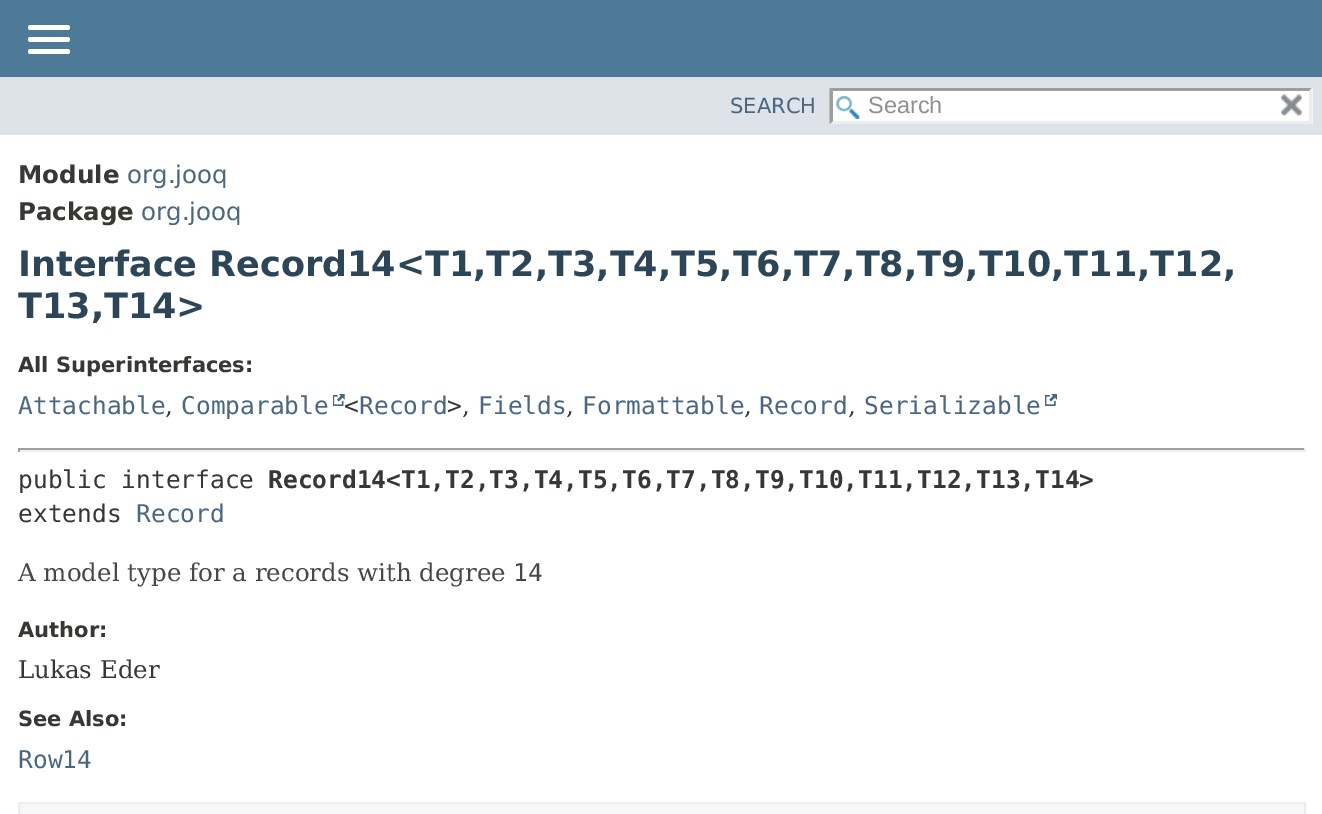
%!PS
<< /PageSize [1322 814] >> setpagedevice
/roundrect { 5 dict begin { /r /h /w /y /x } { exch def } forall
  x r add y moveto x w add y 2 copy h add r arct x w add y h add x 1 index r arct
  x y h add x y r arct x y 2 copy exch w add exch r arct closepath end } def
/picture { 5 dict begin { /h /w /y /x /name } { exch def } forall
  gsave x y translate w h scale
  w h 8 [w 0 0 h 0 0] name (r) file false 3 colorimage grestore end } def
0 814 translate 1 -1 scale
4 setmiterlimit
1 setgray
0 0 1322 814 rectfill
0.302 0.478 0.592 setrgbcolor
0 0 1322 77 rectfill
1 setgray
28 25 42 5 2.5 roundrect fill
28 37 42 5 2.5 roundrect fill
28 49 42 5 2.5 roundrect fill
0.871 0.89 0.914 setrgbcolor
0 77 1322 58 rectfill
/DejaVuSans-Regular [21 0 0 -21 0 0] selectfont
0.29 0.404 0.51 setrgbcolor
730 113 moveto (SEARCH) show
1 setgray
830 88 483 36 rectfill
(img1.rgb) 836 96 24 23 picture
0.62 setgray
newpath 830 88 moveto 1312 88 lineto 1309 91 lineto 833 91 lineto closepath fill
0.929 setgray
newpath 1312.5 87.5 moveto 1312.5 124 lineto 1309 121 lineto 1309 91 lineto closepath fill
newpath 1312 124 moveto 830 124 lineto 833 121 lineto 1309 121 lineto closepath fill
0.62 setgray
newpath 829.5 124 moveto 829.5 87.5 lineto 833 91 lineto 833 121 lineto closepath fill
/LiberationSans-Regular [23.5 0 0 -23.5 0 0] selectfont
0.565 setgray
868 113 moveto (Search) show
(img2.rgb) 1281 94 21 22 picture
/DejaVuSans-Bold [24.5 0 0 -24.5 0 0] selectfont
0.208 0.22 0.2 setrgbcolor
18 183 moveto (Module) show
/DejaVuSans-Regular [24.5 0 0 -24.5 0 0] selectfont
0.29 0.404 0.51 setrgbcolor
127 183 moveto (org.jooq) show
/DejaVuSans-Bold [24.5 0 0 -24.5 0 0] selectfont
0.208 0.22 0.2 setrgbcolor
18 220 moveto (Package) show
/DejaVuSans-Regular [24.5 0 0 -24.5 0 0] selectfont
0.29 0.404 0.51 setrgbcolor
141 220 moveto (org.jooq) show
/DejaVuSans-Bold [35 0 0 -35 0 0] selectfont
0.173 0.271 0.341 setrgbcolor
18 276 moveto (Interface Record14<T1,T2,T3,T4,T5,T6,T7,T8,T9,T10,T11,T12,) show
18 318 moveto (T13,T14>) show
/DejaVuSans-Bold [21 0 0 -21 0 0] selectfont
0.208 0.22 0.2 setrgbcolor
18 372 moveto (All Superinterfaces:) show
/DejaVuSansMono-Regular [24.5 0 0 -24.5 0 0] selectfont
0.29 0.404 0.51 setrgbcolor
18 414 moveto (Attachable) show
/DejaVuSerif-Regular [24.5 0 0 -24.5 0 0] selectfont
0.208 0.22 0.2 setrgbcolor
165 414 moveto (,) show
/DejaVuSansMono-Regular [24.5 0 0 -24.5 0 0] selectfont
0.29 0.404 0.51 setrgbcolor
181 414 moveto (Comparable) show
(img3.rgb) 333 394 12 12 picture
0.208 0.22 0.2 setrgbcolor
344 414 moveto (<) show
0.29 0.404 0.51 setrgbcolor
359 414 moveto (Record) show
0.208 0.22 0.2 setrgbcolor
447 414 moveto (>) show
/DejaVuSerif-Regular [24.5 0 0 -24.5 0 0] selectfont
462 414 moveto (,) show
/DejaVuSansMono-Regular [24.5 0 0 -24.5 0 0] selectfont
0.29 0.404 0.51 setrgbcolor
478 414 moveto (Fields) show
/DejaVuSerif-Regular [24.5 0 0 -24.5 0 0] selectfont
0.208 0.22 0.2 setrgbcolor
566 414 moveto (,) show
/DejaVuSansMono-Regular [24.5 0 0 -24.5 0 0] selectfont
0.29 0.404 0.51 setrgbcolor
582 414 moveto (Formattable) show
/DejaVuSerif-Regular [24.5 0 0 -24.5 0 0] selectfont
0.208 0.22 0.2 setrgbcolor
744 414 moveto (,) show
/DejaVuSansMono-Regular [24.5 0 0 -24.5 0 0] selectfont
0.29 0.404 0.51 setrgbcolor
759 414 moveto (Record) show
/DejaVuSerif-Regular [24.5 0 0 -24.5 0 0] selectfont
0.208 0.22 0.2 setrgbcolor
848 414 moveto (,) show
/DejaVuSansMono-Regular [24.5 0 0 -24.5 0 0] selectfont
0.29 0.404 0.51 setrgbcolor
864 414 moveto (Serializable) show
(img4.rgb) 1045 394 12 12 picture
0.624 setgray
18 448 1288 2 rectfill
0.933 setgray
1304 448 2 4 rectfill
18 450 1288 2 rectfill
0.624 setgray
18 448 2 4 rectfill
0.208 0.22 0.2 setrgbcolor
18 488 moveto (public interface) show
/DejaVuSansMono-Bold [24.5 0 0 -24.5 0 0] selectfont
268 488 moveto (Record14<T1,T2,T3,T4,T5,T6,T7,T8,T9,T10,T11,T12,T13,T14>) show
/DejaVuSansMono-Regular [24.5 0 0 -24.5 0 0] selectfont
18 522 moveto (extends) show
0.29 0.404 0.51 setrgbcolor
136 522 moveto (Record) show
/DejaVuSerif-Regular [24.5 0 0 -24.5 0 0] selectfont
0.278 setgray
18 581 moveto (A model type for a records with degree) show
/DejaVuSansMono-Regular [24.5 0 0 -24.5 0 0] selectfont
513 581 moveto (14) show
/DejaVuSans-Bold [21 0 0 -21 0 0] selectfont
0.208 0.22 0.2 setrgbcolor
18 637 moveto (Author:) show
/DejaVuSerif-Regular [24.5 0 0 -24.5 0 0] selectfont
18 678 moveto (Lukas Eder) show
/DejaVuSans-Bold [21 0 0 -21 0 0] selectfont
18 726 moveto (See Also:) show
/DejaVuSansMono-Regular [24.5 0 0 -24.5 0 0] selectfont
0.29 0.404 0.51 setrgbcolor
18 768 moveto (Row14) show
0.973 setgray
newpath 19 803 moveto 1305 803 lineto 1305 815 lineto 19 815 lineto closepath gsave fill grestore
0.929 setgray
2 setlinewidth
stroke
showpage
